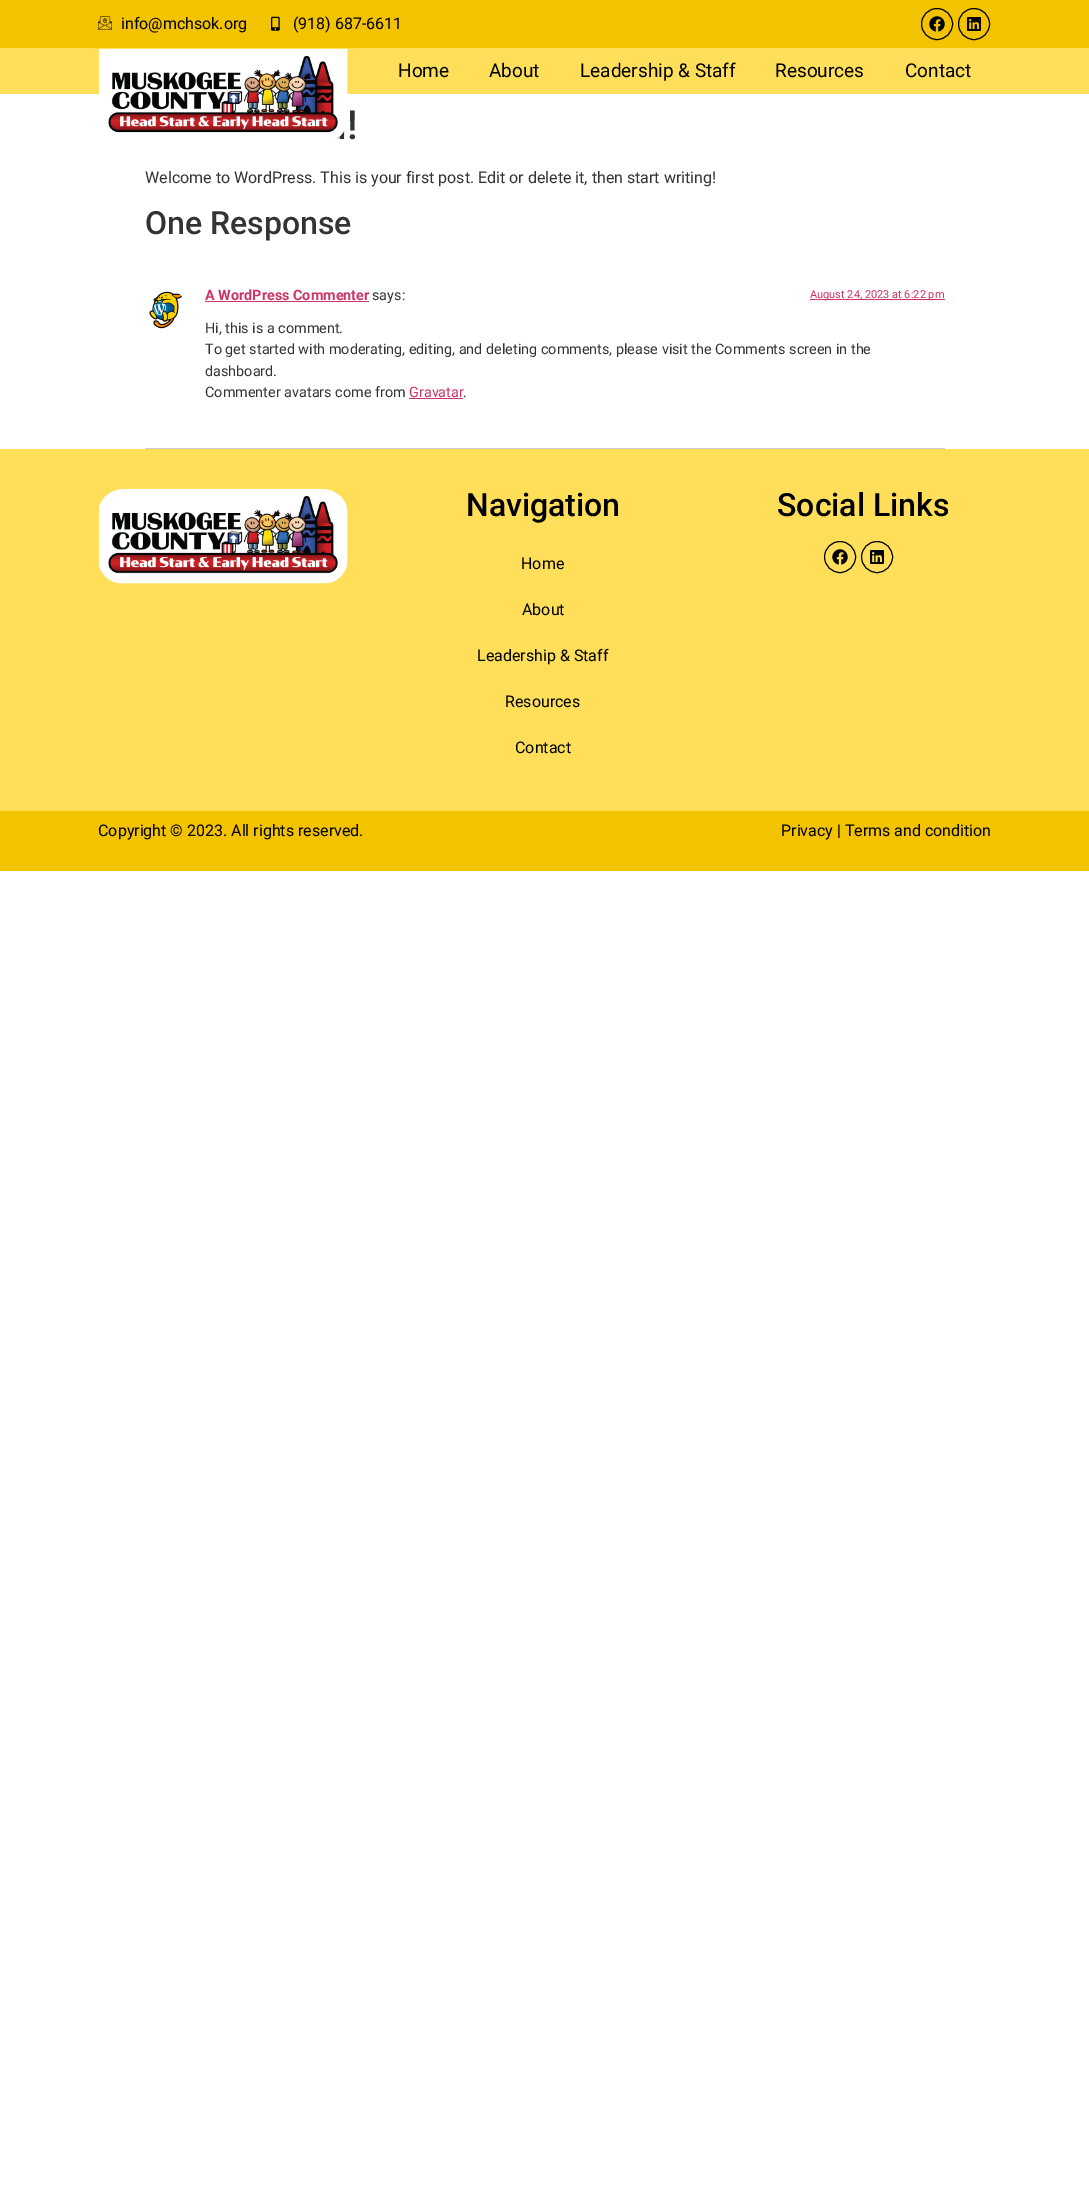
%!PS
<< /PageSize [1089 2200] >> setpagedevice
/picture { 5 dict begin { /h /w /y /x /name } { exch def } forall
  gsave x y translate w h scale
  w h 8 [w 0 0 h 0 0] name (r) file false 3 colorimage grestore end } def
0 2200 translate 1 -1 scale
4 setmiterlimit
1 setgray
0 0 1089 2200 rectfill
0.953 0.765 0 setrgbcolor
0 0 1089 48 rectfill
(img1.rgb) 98 16 14 14 picture
/Roboto-Regular [16 0 0 -16 0 0] selectfont
0 setgray
121 29 moveto (info@mchsok.org) show
(img2.rgb) 271 16 9 15 picture
293 29 moveto (\(918\) 687-6611) show
newpath 937 24 15.5 0 360 arc closepath stroke
(img3.rgb) 929 16 16 16 picture
newpath 974 24 15.5 0 360 arc closepath stroke
(img4.rgb) 967 17 14 14 picture
1 0.871 0.349 setrgbcolor
0 48 1089 46 rectfill
(img5.rgb) 98 49 250 91 picture
/Roboto-Regular [19 0 0 -19 0 0] selectfont
0 setgray
398 77 moveto (Home) show
489 77 moveto (About) show
580 77 moveto (Leadership & Staff) show
775 77 moveto (Resources) show
905 77 moveto (Contact) show
/Roboto-Medium [40 0 0 -40 0 0] selectfont
0.2 setgray
347 139 moveto (!) show
/Roboto-Regular [16 0 0 -16 0 0] selectfont
145 183 moveto (Welcome to WordPress. This is your first post. Edit or delete it, then start writing!) show
/Roboto-Medium [32 0 0 -32 0 0] selectfont
145 234 moveto (One Response) show
0.8 setgray
145 448 800 1 rectfill
(img6.rgb) 149 291 33 38 picture
/Roboto-Bold [14.4 0 0 -14.4 0 0] selectfont
0.8 0.2 0.4 setrgbcolor
205 300 moveto (A WordPress Commenter) show
205 301 164 1 rectfill
/Roboto-Regular [14.4 0 0 -14.4 0 0] selectfont
0.2 setgray
372 300 moveto (says:) show
0.8 0.2 0.4 setrgbcolor
810 299 135 1 rectfill
/Roboto-Regular [11 0 0 -11 0 0] selectfont
810 298 moveto (August 24, 2023 at 6:22 pm) show
/Roboto-Regular [14.4 0 0 -14.4 0 0] selectfont
0.2 setgray
205 333 moveto (Hi, this is a comment.) show
205 354 moveto (To get started with moderating, editing, and deleting comments, please visit the Comments screen in the) show
205 376 moveto (dashboard.) show
205 397 moveto (Commenter avatars come from) show
0.8 0.2 0.4 setrgbcolor
409 397 moveto (Gravatar) show
409 398 54 1 rectfill
0.2 setgray
463 397 moveto (.) show
1 0.871 0.349 setrgbcolor
0 449 1089 362 rectfill
(img7.rgb) 98 489 250 95 picture
/Roboto-Medium [32 0 0 -32 0 0] selectfont
0 setgray
466 516 moveto (Navigation) show
/Roboto-Regular [16 0 0 -16 0 0] selectfont
521 569 moveto (Home) show
522 615 moveto (About) show
477 661 moveto (Leadership & Staff) show
505 707 moveto (Resources) show
515 753 moveto (Contact) show
/Roboto-Medium [32 0 0 -32 0 0] selectfont
777 516 moveto (Social Links) show
newpath 840 557 15.5 0 360 arc closepath stroke
(img8.rgb) 832 549 16 16 picture
newpath 877 557 15.5 0 360 arc closepath stroke
(img9.rgb) 870 550 14 14 picture
0.953 0.765 0 setrgbcolor
0 811 1089 60 rectfill
/Roboto-Regular [16 0 0 -16 0 0] selectfont
0 setgray
98 836 moveto (Copyright © 2023. All rights reserved.) show
781 836 moveto (Privacy | Terms and condition) show
showpage
